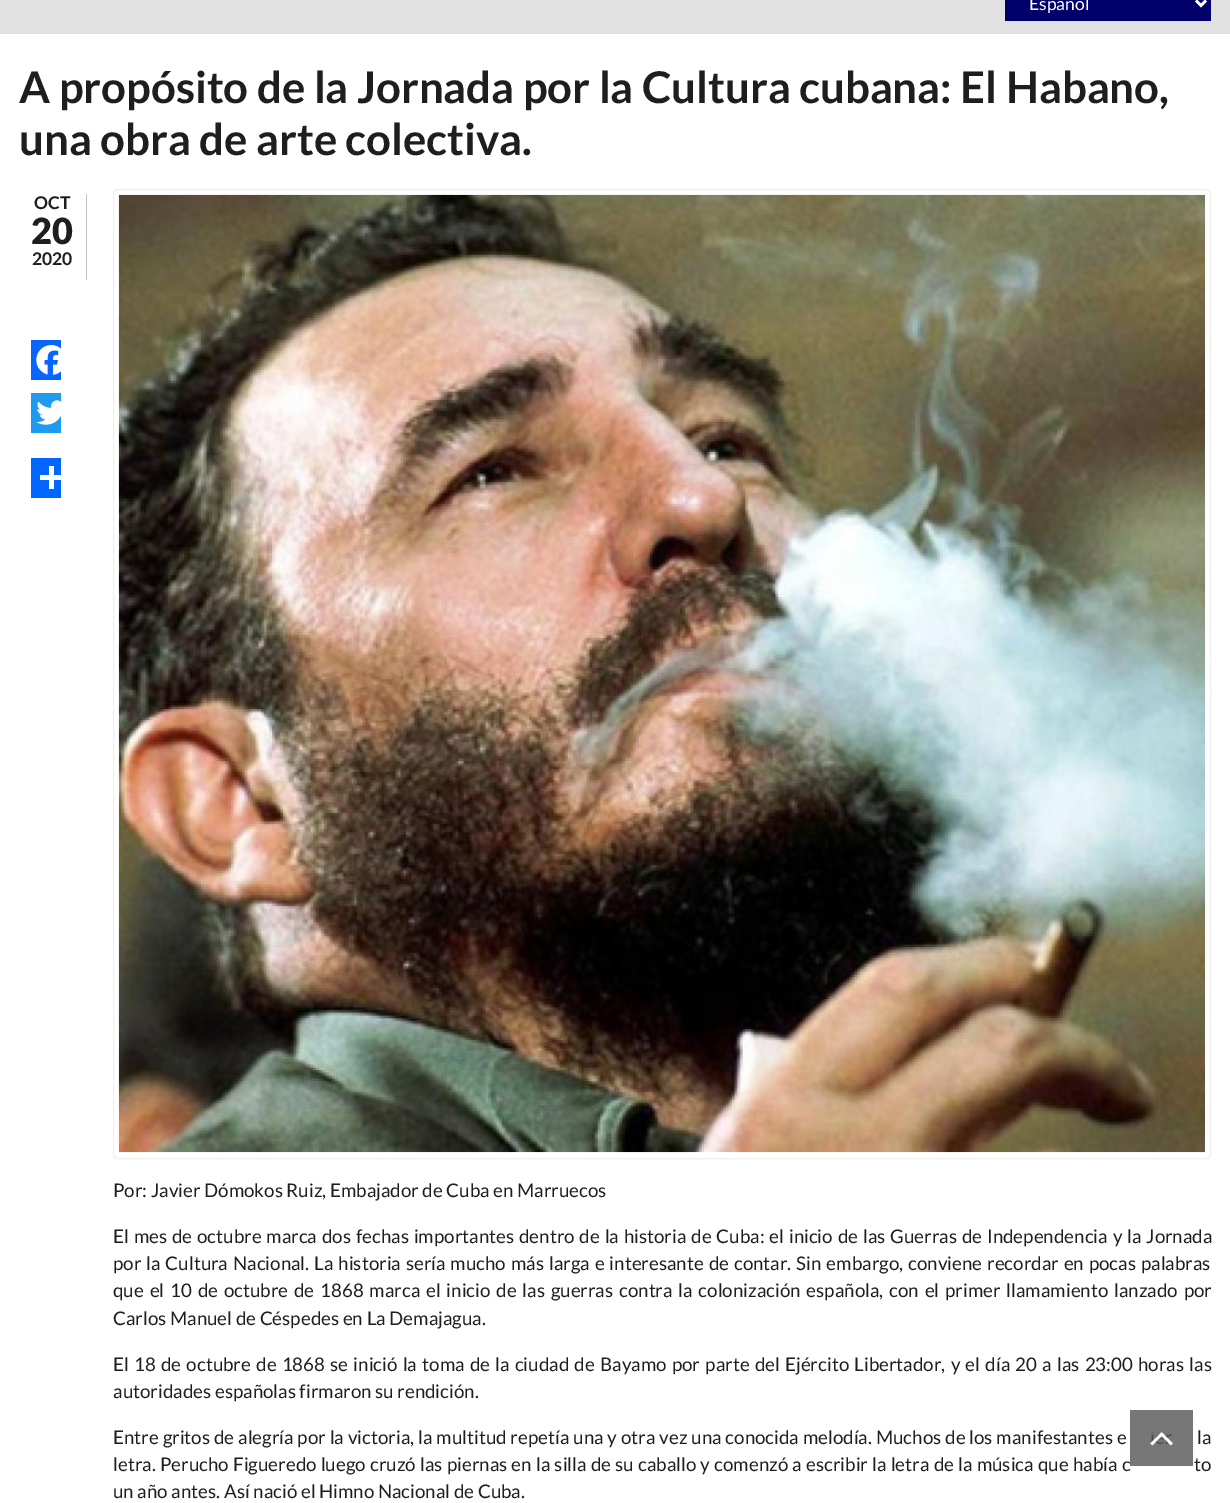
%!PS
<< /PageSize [1230 1503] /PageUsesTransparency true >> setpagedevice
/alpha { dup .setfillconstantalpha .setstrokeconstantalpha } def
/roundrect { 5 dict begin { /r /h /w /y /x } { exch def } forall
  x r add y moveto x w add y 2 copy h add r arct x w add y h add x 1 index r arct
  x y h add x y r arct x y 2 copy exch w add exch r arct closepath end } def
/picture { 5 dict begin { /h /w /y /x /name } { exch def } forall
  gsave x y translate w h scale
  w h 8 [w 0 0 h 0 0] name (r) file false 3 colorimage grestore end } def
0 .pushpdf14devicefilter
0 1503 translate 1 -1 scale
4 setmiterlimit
1 setgray
0 0 1230 1503 rectfill
0.882 setgray
0 0 1230 34 rectfill
0 0 0.416 setrgbcolor
1005 0 206 21 rectfill
1 setgray
2.5 setlinewidth
newpath 1196 0.5 moveto 1201 5.5 lineto 1206 0.5 lineto stroke
/Lato-Regular [17.5 0 0 -17.5 0 0] selectfont
1029 10 moveto (Español) show
/Lato-Bold [43.75 0 0 -43.75 0 0] selectfont
0.118 setgray
19 103 moveto (A propósito de la Jornada por la Cultura cubana: El Habano,) show
19 155 moveto (una obra de arte colectiva.) show
0.761 setgray
86 194 1 86 rectfill
/Lato-Bold [17.5 0 0 -17.5 0 0] selectfont
0.118 setgray
34 209 moveto (OCT) show
/Lato-Black [36 0 0 -36 0 0] selectfont
31 244 moveto (20) show
/Lato-Bold [17.5 0 0 -17.5 0 0] selectfont
32 265 moveto (2020) show
0.031 0.4 1 setrgbcolor
31 340 30 40 rectfill
(img1.rgb) 36 345 25 30 picture
0.114 0.608 0.941 setrgbcolor
31 393 30 40 rectfill
(img2.rgb) 36 400 25 25 picture
0.004 0.4 1 setrgbcolor
31 458 30 40 rectfill
1 setgray
49 466 5 23 rectfill
40 475 21 5 rectfill
0.937 setgray
1 setlinewidth
113.5 189.5 1097 969 4.5 roundrect stroke
(img3.rgb) 118 194 1087 959 picture
/Lato-Regular [18.75 0 0 -18.75 0 0] selectfont
0.118 setgray
113 1197 moveto (Por: Javier Dómokos Ruiz, Embajador de Cuba en Marruecos) show
113 1243 moveto 1.25 0 32 (El mes de octubre marca dos fechas importantes dentro de la historia de Cuba: el inicio de las Guerras de Independencia y la Jornada) widthshow
113 1270 moveto 1.3 0 32 (por la Cultura Nacional. La historia sería mucho más larga e interesante de contar. Sin embargo, conviene recordar en pocas palabras) widthshow
113 1297 moveto 2.2 0 32 (que el 10 de octubre de 1868 marca el inicio de las guerras contra la colonización española, con el primer llamamiento lanzado por) widthshow
113 1325 moveto (Carlos Manuel de Céspedes en La Demajagua.) show
113 1371 moveto 1.6 0 32 (El 18 de octubre de 1868 se inició la toma de la ciudad de Bayamo por parte del Ejército Libertador, y el día 20 a las 23:00 horas las) widthshow
113 1398 moveto (autoridades españolas firmaron su rendición.) show
113 1444 moveto 0.25 0 32 (Entre gritos de alegría por la victoria, la multitud repetía una y otra vez una conocida melodía. Muchos de los manifestantes e) widthshow
1197 1444 moveto 0.25 0 32 (la) widthshow
113 1471 moveto 0.6 0 32 (letra. Perucho Figueredo luego cruzó las piernas en la silla de su caballo y comenzó a escribir la letra de la música que había c) widthshow
1194 1471 moveto 0.6 0 32 (to) widthshow
113 1498 moveto (un año antes. Así nació el Himno Nacional de Cuba.) show
0.8 alpha
0.333 setgray
1130 1410 63 56 rectfill
1 alpha
(img4.rgb) 1150 1432 23 14 picture
.poppdf14devicefilter showpage
